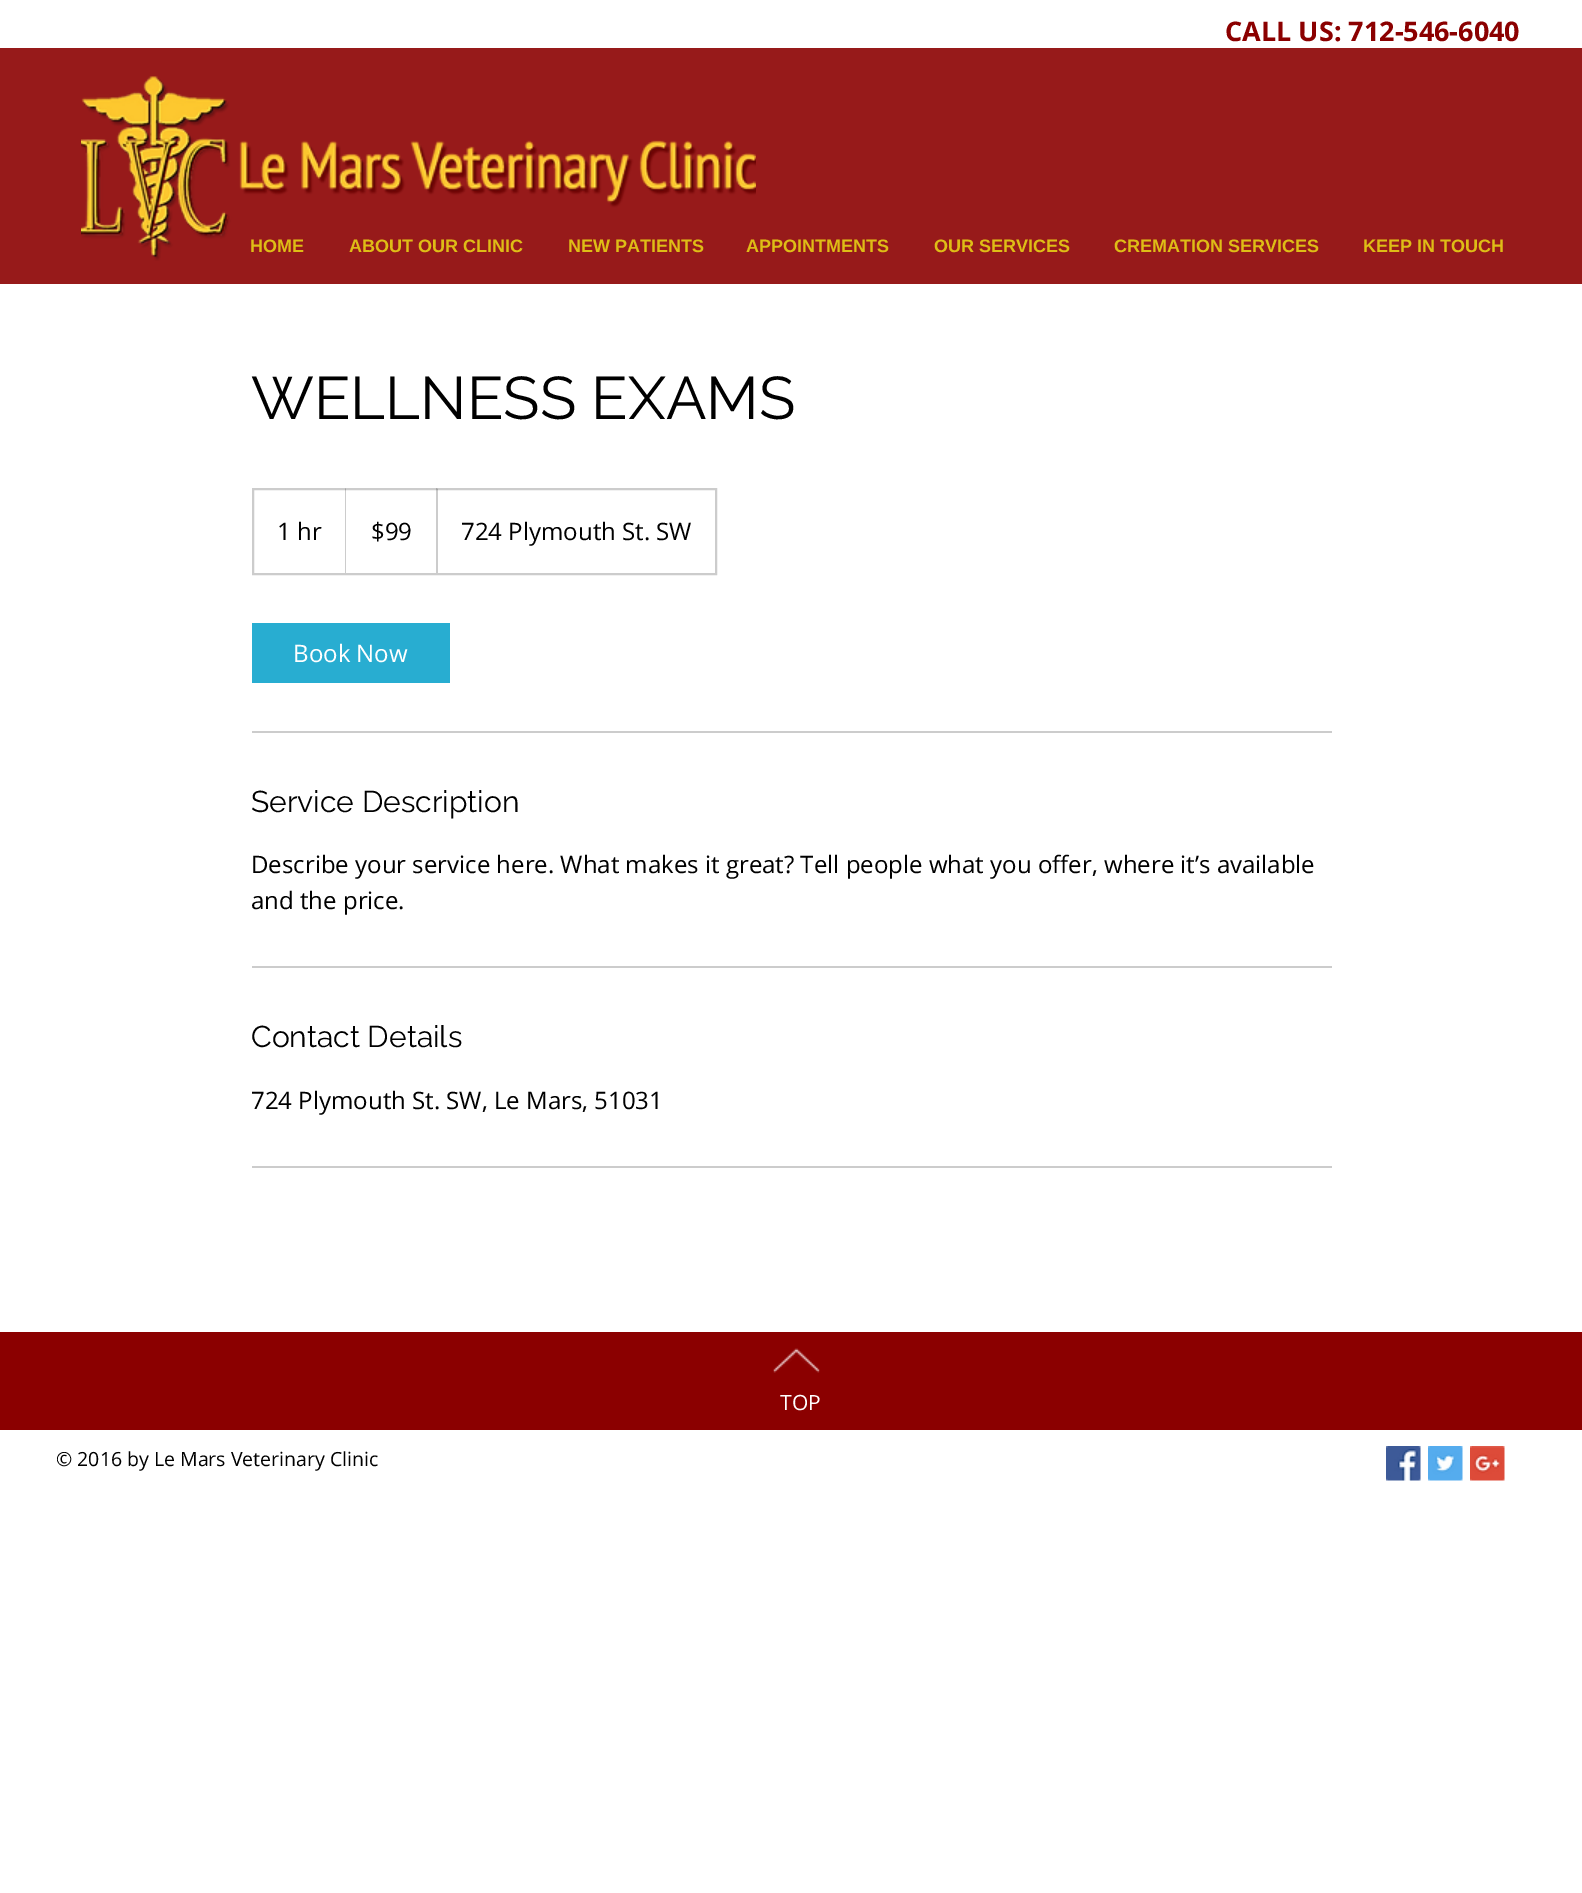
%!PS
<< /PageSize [1582 1893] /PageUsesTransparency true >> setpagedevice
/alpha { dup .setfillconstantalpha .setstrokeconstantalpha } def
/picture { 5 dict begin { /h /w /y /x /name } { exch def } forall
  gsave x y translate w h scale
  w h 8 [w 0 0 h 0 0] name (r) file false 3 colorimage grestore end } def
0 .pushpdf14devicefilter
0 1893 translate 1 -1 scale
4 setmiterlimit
1 setgray
0 0 1582 1893 rectfill
/OpenSans-Bold [27 0 0 -27 0 0] selectfont
0.545 0 0 setrgbcolor
1225 41 moveto (CALL US: 712-546-6040) show
0.592 0.102 0.102 setrgbcolor
0 48 1582 236 rectfill
(img1.rgb) 81 76 675 185 picture
/LiberationSans-Bold [18 0 0 -18 0 0] selectfont
0.871 0.741 0.086 setrgbcolor
250 252 moveto (HOME) show
349 252 moveto (ABOUT OUR CLINIC) show
568 252 moveto (NEW PATIENTS) show
746 252 moveto (APPOINTMENTS) show
934 252 moveto (OUR SERVICES) show
1114 252 moveto (CREMATION SERVICES) show
1363 252 moveto (KEEP IN TOUCH) show
/Raleway-Regular [60 0 0 -60 0 0] selectfont
0 setgray
251 419 moveto (WELLNESS EXAMS) show
0.8 setgray
2 setlinewidth
253 489 463 85 rectstroke
/OpenSans-Regular [24 0 0 -24 0 0] selectfont
0 setgray
277 540 moveto (1 hr) show
0.2 alpha
newpath 345 573 moveto 345 488 lineto 346 489 lineto 346 573 lineto closepath fill
1 alpha
371 540 moveto ($99) show
0.2 alpha
newpath 436 573 moveto 436 488 lineto 438 489 lineto 438 573 lineto closepath fill
1 alpha
461 540 moveto (724 Plymouth St. SW) show
0.157 0.678 0.82 setrgbcolor
252 623 198 60 rectfill
1 setgray
293 662 moveto (Book Now) show
0.8 setgray
252 731 1080 2 rectfill
/Raleway-Regular [30 0 0 -30 0 0] selectfont
0 setgray
251 812 moveto (Service Description) show
/OpenSans-Regular [24 0 0 -24 0 0] selectfont
251 873 moveto (Describe your service here. What makes it great? Tell people what you offer, where it’s available) show
251 909 moveto (and the price.) show
0.8 setgray
252 966 1080 2 rectfill
/Raleway-Regular [30 0 0 -30 0 0] selectfont
0 setgray
251 1047 moveto (Contact Details) show
/OpenSans-Regular [24 0 0 -24 0 0] selectfont
251 1109 moveto (724 Plymouth St. SW, Le Mars, 51031) show
0.8 setgray
252 1166 1080 2 rectfill
0.545 0 0 setrgbcolor
0 1332 1582 98 rectfill
(img2.rgb) 773 1348 47 25 picture
/OpenSans-Regular [21 0 0 -21 0 0] selectfont
1 setgray
780 1410 moveto (TOP) show
/OpenSans-Regular [19.5 0 0 -19.5 0 0] selectfont
0 setgray
56 1466 moveto (© 2016 by Le Mars Veterinary Clinic) show
(img3.rgb) 1386 1446 35 35 picture
(img4.rgb) 1428 1446 35 35 picture
(img5.rgb) 1470 1446 35 35 picture
.poppdf14devicefilter showpage
